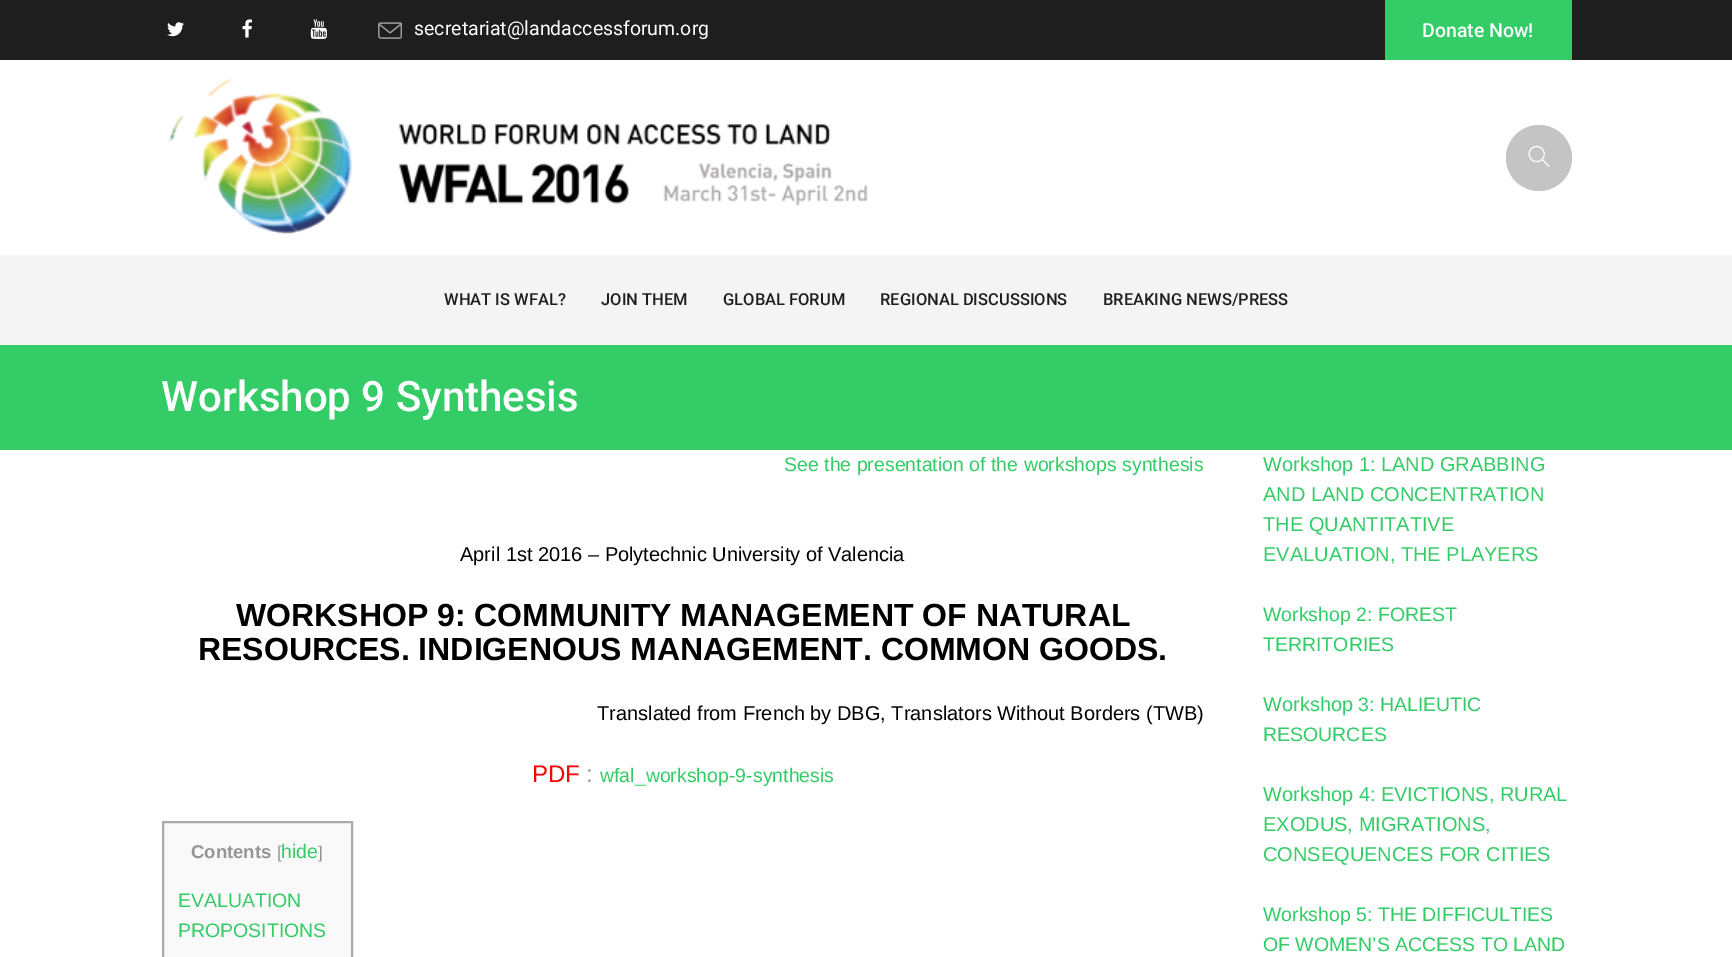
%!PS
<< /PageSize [1732 957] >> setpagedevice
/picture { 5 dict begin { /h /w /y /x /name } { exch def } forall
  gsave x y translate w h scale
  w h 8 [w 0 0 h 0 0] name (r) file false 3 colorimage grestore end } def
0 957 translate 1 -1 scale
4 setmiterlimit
1 setgray
0 0 1732 957 rectfill
0.118 setgray
0 0 1732 60 rectfill
(img1.rgb) 167 22 17 15 picture
(img2.rgb) 242 19 10 19 picture
(img3.rgb) 310 19 17 20 picture
(img4.rgb) 378 22 24 17 picture
/Roboto-Regular [19.5 0 0 -19.5 0 0] selectfont
1 setgray
414 35 moveto (secretariat@landaccessforum.org) show
0.2 0.8 0.4 setrgbcolor
1385 0 187 60 rectfill
/Roboto-Medium [19.5 0 0 -19.5 0 0] selectfont
1 setgray
1422 37 moveto (Donate Now!) show
(img5.rgb) 168 77 700 157 picture
0.769 setgray
newpath 1539 158 33 0 360 arc closepath fill
(img6.rgb) 1528 145 22 22 picture
0.957 setgray
0 255 1732 90 rectfill
/Roboto-Medium [16.5 0 0 -16.5 0 0] selectfont
0.118 setgray
444 305 moveto (WHAT IS WFAL?) show
601 305 moveto (JOIN THEM) show
723 305 moveto (GLOBAL FORUM) show
880 305 moveto (REGIONAL DISCUSSIONS) show
1103 305 moveto (BREAKING NEWS/PRESS) show
0.2 0.8 0.4 setrgbcolor
0 345 1732 105 rectfill
/Roboto-Medium [42 0 0 -42 0 0] selectfont
1 setgray
161 411 moveto (Workshop 9 Synthesis) show
/LiberationSans-Regular [19.5 0 0 -19.5 0 0] selectfont
0.2 0.8 0.4 setrgbcolor
784 471 moveto (See the presentation of the workshops synthesis) show
/LiberationSans-Regular [20 0 0 -20 0 0] selectfont
0 setgray
460 561 moveto (April 1st 2016 – Polytechnic University of Valencia) show
/LiberationSans-Bold [32 0 0 -32 0 0] selectfont
236 626 moveto (WORKSHOP 9: COMMUNITY MANAGEMENT OF NATURAL) show
198 660 moveto (RESOURCES. INDIGENOUS MANAGEMENT. COMMON GOODS.) show
/LiberationSans-Regular [20 0 0 -20 0 0] selectfont
597 720 moveto (Translated from French by DBG, Translators Without Borders \(TWB\)) show
/LiberationSans-Regular [24 0 0 -24 0 0] selectfont
1 0 0 setrgbcolor
532 782 moveto (PDF) show
0.584 setgray
586 782 moveto (:) show
/LiberationSans-Regular [19.5 0 0 -19.5 0 0] selectfont
0.2 0.8 0.4 setrgbcolor
600 782 moveto (wfal_workshop-9-synthesis) show
0.976 setgray
newpath 163 822 moveto 352 822 lineto 352 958 lineto 163 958 lineto closepath gsave fill grestore
0.667 setgray
2 setlinewidth
stroke
/LiberationSans-Bold [18.5 0 0 -18.5 0 0] selectfont
0.584 setgray
191 858 moveto (Contents) show
/LiberationSans-Regular [17 0 0 -17 0 0] selectfont
277 858 moveto ([) show
/LiberationSans-Regular [19.5 0 0 -19.5 0 0] selectfont
0.2 0.8 0.4 setrgbcolor
281 858 moveto (hide) show
/LiberationSans-Regular [17 0 0 -17 0 0] selectfont
0.584 setgray
318 858 moveto (]) show
/LiberationSans-Regular [19.5 0 0 -19.5 0 0] selectfont
0.2 0.8 0.4 setrgbcolor
178 907 moveto (EVALUATION) show
178 937 moveto (PROPOSITIONS) show
/LiberationSans-Regular [20 0 0 -20 0 0] selectfont
1263 471 moveto (Workshop 1: LAND GRABBING) show
1263 501 moveto (AND LAND CONCENTRATION) show
1263 531 moveto (THE QUANTITATIVE) show
1263 561 moveto (EVALUATION, THE PLAYERS) show
/LiberationSans-Regular [19.5 0 0 -19.5 0 0] selectfont
1263 621 moveto (Workshop 2: FOREST) show
1263 651 moveto (TERRITORIES) show
/LiberationSans-Regular [20 0 0 -20 0 0] selectfont
1263 711 moveto (Workshop) show
/LiberationSans-Regular [19.5 0 0 -19.5 0 0] selectfont
1358 711 moveto (3: HALIEUTIC) show
1263 741 moveto (RESOURCES) show
/LiberationSans-Regular [20 0 0 -20 0 0] selectfont
1263 801 moveto (Workshop 4: EVICTIONS, RURAL) show
1263 831 moveto (EXODUS, MIGRATIONS,) show
1263 861 moveto (CONSEQUENCES FOR CITIES) show
/LiberationSans-Regular [19.5 0 0 -19.5 0 0] selectfont
1263 921 moveto (Workshop 5: THE DIFFICULTIES) show
1263 951 moveto (OF WOMEN’S ACCESS TO LAND) show
showpage
